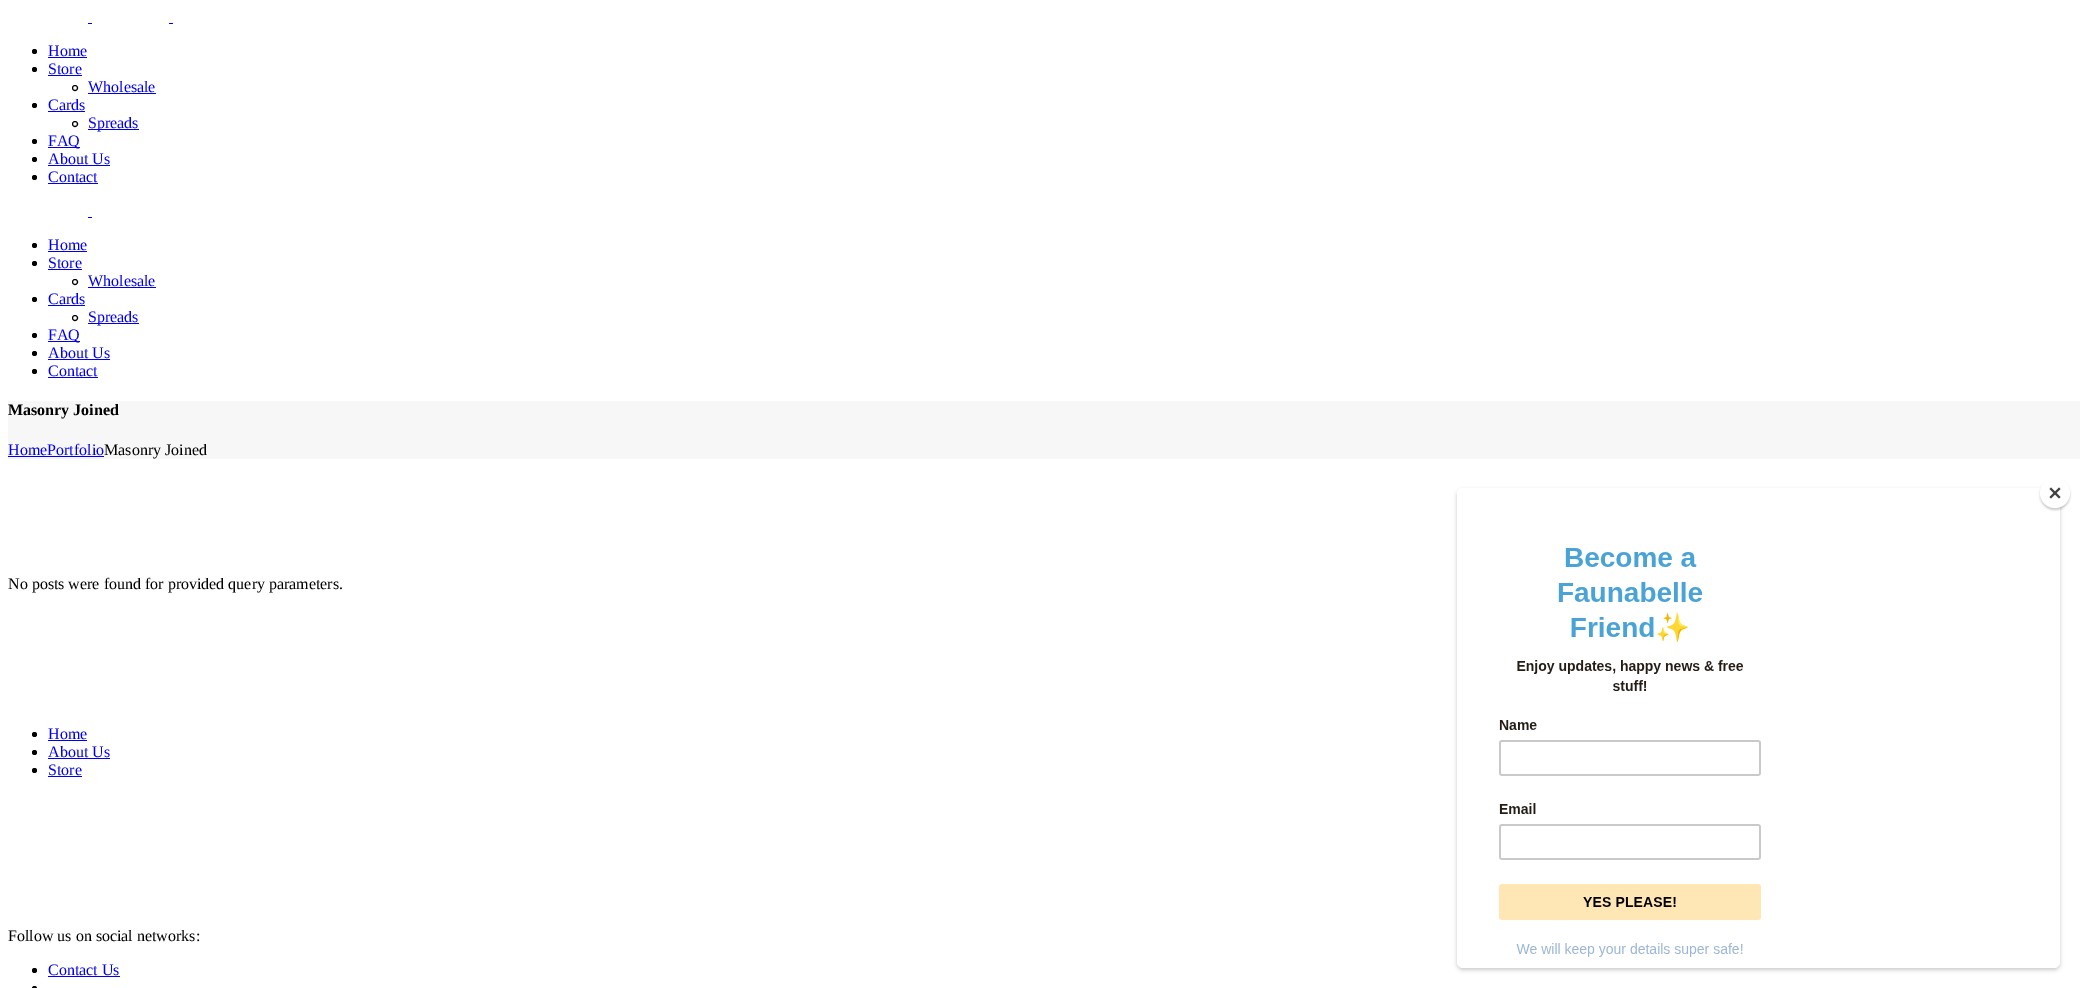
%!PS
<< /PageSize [2080 988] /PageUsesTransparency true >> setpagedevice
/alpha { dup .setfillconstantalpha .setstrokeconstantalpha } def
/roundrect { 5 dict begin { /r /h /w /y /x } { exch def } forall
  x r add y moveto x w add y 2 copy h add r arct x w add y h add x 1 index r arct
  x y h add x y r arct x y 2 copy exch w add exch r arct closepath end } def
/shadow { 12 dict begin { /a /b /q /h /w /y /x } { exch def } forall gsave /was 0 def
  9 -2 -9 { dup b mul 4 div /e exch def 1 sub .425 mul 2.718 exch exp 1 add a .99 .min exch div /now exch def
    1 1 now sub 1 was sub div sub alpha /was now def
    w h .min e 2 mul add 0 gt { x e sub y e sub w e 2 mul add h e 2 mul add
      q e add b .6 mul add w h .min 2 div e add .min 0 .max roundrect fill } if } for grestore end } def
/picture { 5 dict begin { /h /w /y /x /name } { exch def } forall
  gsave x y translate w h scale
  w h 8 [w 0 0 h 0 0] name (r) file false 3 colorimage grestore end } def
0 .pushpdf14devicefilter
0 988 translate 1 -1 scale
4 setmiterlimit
1 setgray
0 0 2080 988 rectfill
0 0 0.933 setrgbcolor
88 23 4 1 rectfill
169 23 4 1 rectfill
0 setgray
newpath 34.5 51.5 2.5 0 360 arc closepath fill
/LiberationSerif-Regular [16 0 0 -16 0 0] selectfont
0 0 0.933 setrgbcolor
48 56 moveto (Home) show
48 57 39 1 rectfill
0 setgray
newpath 34.5 69.5 2.5 0 360 arc closepath fill
0 0 0.933 setrgbcolor
48 74 moveto (Store) show
48 75 34 1 rectfill
0 setgray
newpath 75 88 2.5 0 360 arc closepath stroke
0 0 0.933 setrgbcolor
88 92 moveto (Wholesale) show
88 93 68 1 rectfill
0 setgray
newpath 34.5 105.5 2.5 0 360 arc closepath fill
0 0 0.933 setrgbcolor
48 110 moveto (Cards) show
48 111 37 1 rectfill
0 setgray
newpath 75 124 2.5 0 360 arc closepath stroke
0 0 0.933 setrgbcolor
88 129 51 1 rectfill
88 128 moveto (Spreads) show
0 setgray
newpath 34.5 141.5 2.5 0 360 arc closepath fill
0 0 0.933 setrgbcolor
48 147 32 1 rectfill
48 146 moveto (FAQ) show
0 setgray
newpath 34.5 159.5 2.5 0 360 arc closepath fill
0 0 0.933 setrgbcolor
48 164 moveto (About Us) show
48 165 62 1 rectfill
0 setgray
newpath 34.5 177.5 2.5 0 360 arc closepath fill
0 0 0.933 setrgbcolor
48 182 moveto (Contact) show
48 183 50 1 rectfill
88 217 4 1 rectfill
0 setgray
newpath 34.5 245.5 2.5 0 360 arc closepath fill
0 0 0.933 setrgbcolor
48 250 moveto (Home) show
48 251 39 1 rectfill
0 setgray
newpath 34.5 263.5 2.5 0 360 arc closepath fill
0 0 0.933 setrgbcolor
48 268 moveto (Store) show
48 269 34 1 rectfill
0 setgray
newpath 75 282 2.5 0 360 arc closepath stroke
0 0 0.933 setrgbcolor
88 286 moveto (Wholesale) show
88 287 68 1 rectfill
0 setgray
newpath 34.5 299.5 2.5 0 360 arc closepath fill
0 0 0.933 setrgbcolor
48 304 moveto (Cards) show
48 305 37 1 rectfill
0 setgray
newpath 75 318 2.5 0 360 arc closepath stroke
0 0 0.933 setrgbcolor
88 323 51 1 rectfill
88 322 moveto (Spreads) show
0 setgray
newpath 34.5 335.5 2.5 0 360 arc closepath fill
0 0 0.933 setrgbcolor
48 341 32 1 rectfill
48 340 moveto (FAQ) show
0 setgray
newpath 34.5 353.5 2.5 0 360 arc closepath fill
0 0 0.933 setrgbcolor
48 358 moveto (About Us) show
48 359 62 1 rectfill
0 setgray
newpath 34.5 371.5 2.5 0 360 arc closepath fill
0 0 0.933 setrgbcolor
48 376 moveto (Contact) show
48 377 50 1 rectfill
0.969 setgray
8 401 2072 58 rectfill
/LiberationSerif-Bold [16 0 0 -16 0 0] selectfont
0 setgray
8 415 moveto (Masonry Joined) show
/LiberationSerif-Regular [16 0 0 -16 0 0] selectfont
0 0 0.933 setrgbcolor
8 455 moveto (HomePortfolio) show
8 456 96 1 rectfill
0 setgray
104 455 moveto (Masonry Joined) show
8 589 moveto (No posts were found for provided query parameters.) show
newpath 34.5 734.5 2.5 0 360 arc closepath fill
0 0 0.933 setrgbcolor
48 739 moveto (Home) show
48 740 39 1 rectfill
0 setgray
newpath 34.5 752.5 2.5 0 360 arc closepath fill
0 0 0.933 setrgbcolor
48 757 moveto (About Us) show
48 758 62 1 rectfill
0 setgray
newpath 34.5 770.5 2.5 0 360 arc closepath fill
0 0 0.933 setrgbcolor
48 775 moveto (Store) show
48 776 34 1 rectfill
0 setgray
8 941 moveto (Follow us on social networks:) show
newpath 34.5 970.5 2.5 0 360 arc closepath fill
0 0 0.933 setrgbcolor
48 975 moveto (Contact Us) show
48 976 72 1 rectfill
0 setgray
newpath 34.5 988.5 2.5 0 360 arc closepath fill
1457 490 603 480 6 2 0.2 shadow
1 setgray
1457 488 603 480 6 roundrect fill
0 setgray
2040 480 30 30 15 1 0.2 shadow
1 setgray
newpath 2055 493 15 0 360 arc closepath fill
0.255 setgray
newpath 2059 487.5 moveto 2060.5 489 lineto 2051 498.5 lineto 2049.5 497 lineto closepath fill
newpath 2049.5 489 moveto 2051 487.5 lineto 2060.5 497 lineto 2059 498.5 lineto closepath fill
(img1.rgb) 1460 548 597 420 picture
.poppdf14devicefilter showpage
